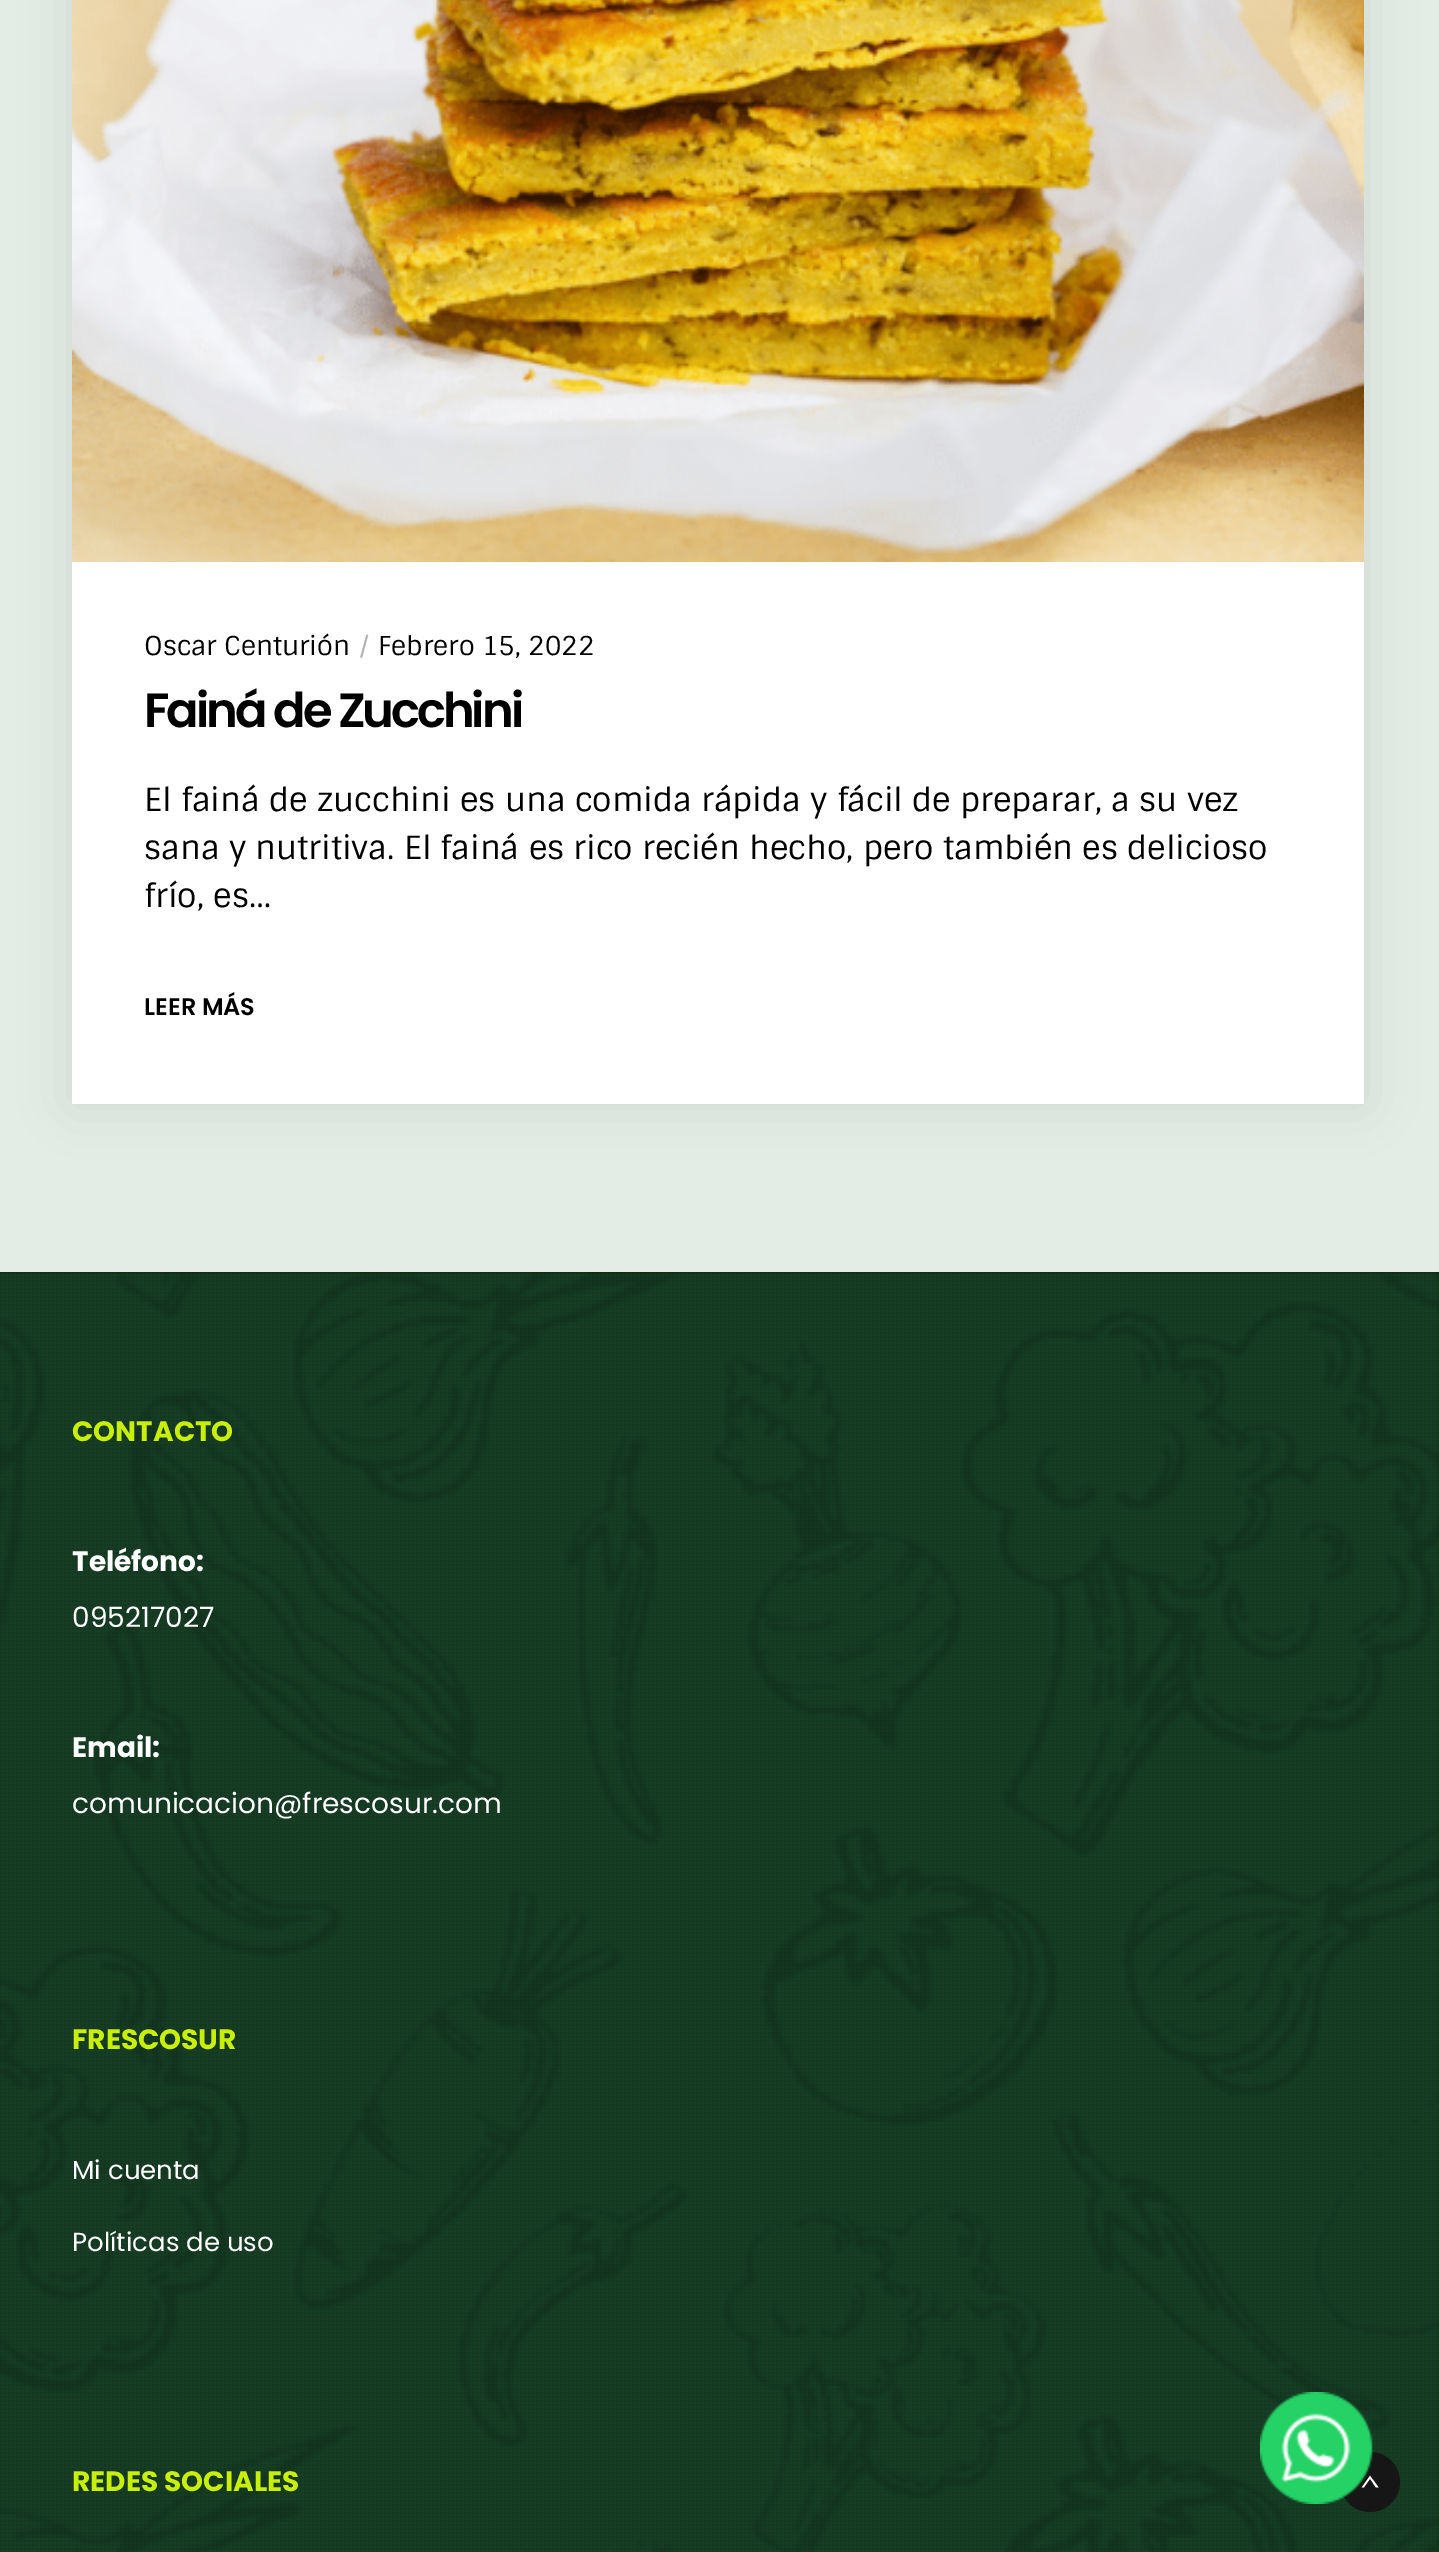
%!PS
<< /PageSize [1439 2552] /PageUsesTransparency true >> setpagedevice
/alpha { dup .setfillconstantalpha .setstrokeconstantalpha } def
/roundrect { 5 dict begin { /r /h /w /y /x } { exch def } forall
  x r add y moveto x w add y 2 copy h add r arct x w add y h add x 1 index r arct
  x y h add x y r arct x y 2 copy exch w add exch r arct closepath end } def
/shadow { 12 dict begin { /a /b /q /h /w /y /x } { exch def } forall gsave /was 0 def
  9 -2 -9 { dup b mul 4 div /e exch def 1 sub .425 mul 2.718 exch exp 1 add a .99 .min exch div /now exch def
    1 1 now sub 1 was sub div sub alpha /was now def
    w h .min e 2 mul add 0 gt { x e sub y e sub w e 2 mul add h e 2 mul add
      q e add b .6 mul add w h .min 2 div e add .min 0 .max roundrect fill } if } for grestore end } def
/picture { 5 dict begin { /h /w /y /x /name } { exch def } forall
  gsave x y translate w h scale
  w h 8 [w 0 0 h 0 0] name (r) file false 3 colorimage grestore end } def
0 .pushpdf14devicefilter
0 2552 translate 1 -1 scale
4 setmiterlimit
0.051 0.157 0.047 setrgbcolor
0 0 1439 2552 rectfill
0.89 0.929 0.902 setrgbcolor
0 0 1439 1272 rectfill
0 setgray
72 -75 1292 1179 0 25 0.1 shadow
1 setgray
72 562 1292 542 rectfill
(img1.rgb) 72 0 1292 562 picture
/Sintony-Regular [26 0 0 -26 0 0] selectfont
0 setgray
144 655 moveto (Oscar Centurión) show
0.702 setgray
360 655 moveto (/) show
0 setgray
378 655 moveto (Febrero 15, 2022) show
/Poppins-SemiBold [48 0 0 -48 0 0] selectfont
144 727 moveto -3 0 (Fainá de Zucchini) ashow
/Sintony-Regular [32 0 0 -32 0 0] selectfont
144 811 moveto (El fainá de zucchini es una comida rápida y fácil de preparar, a su vez) show
144 859 moveto (sana y nutritiva. El fainá es rico recién hecho, pero también es delicioso) show
144 907 moveto (frío, es…) show
/Poppins-SemiBold [24 0 0 -24 0 0] selectfont
144 1015 moveto (LEER MÁS) show
(img2.rgb) 0 1272 1439 1280 picture
(img3.rgb) 0 1272 1438 1278 picture
/Poppins-Bold [28 0 0 -28 0 0] selectfont
0.784 0.937 0.035 setrgbcolor
72 1441 moveto (CONTACTO) show
1 setgray
72 1571 moveto (Teléfono:) show
/Poppins-Regular [28 0 0 -28 0 0] selectfont
72 1627 moveto (095217027) show
/Poppins-Bold [28 0 0 -28 0 0] selectfont
72 1757 moveto (Email:) show
/Poppins-Regular [28 0 0 -28 0 0] selectfont
72 1813 moveto (comunicacion@frescosur.com) show
/Poppins-Bold [28 0 0 -28 0 0] selectfont
0.784 0.937 0.035 setrgbcolor
72 2049 moveto (FRESCOSUR) show
/Poppins-Regular [26 0 0 -26 0 0] selectfont
1 setgray
72 2179 moveto (Mi cuenta) show
72 2251 moveto (Políticas de uso) show
/Poppins-Bold [28 0 0 -28 0 0] selectfont
0.784 0.937 0.035 setrgbcolor
72 2491 moveto (REDES SOCIALES) show
0.086 setgray
newpath 1370 2482 30 0 360 arc closepath fill
1 setgray
newpath 1361.5 2487.5 moveto 1364 2487.5 lineto 1370 2479 lineto 1376 2487.5 lineto 1378.5 2487.5 lineto 1370 2475.5 lineto closepath fill
(img4.rgb) 1260 2392 113 112 picture
.poppdf14devicefilter showpage
